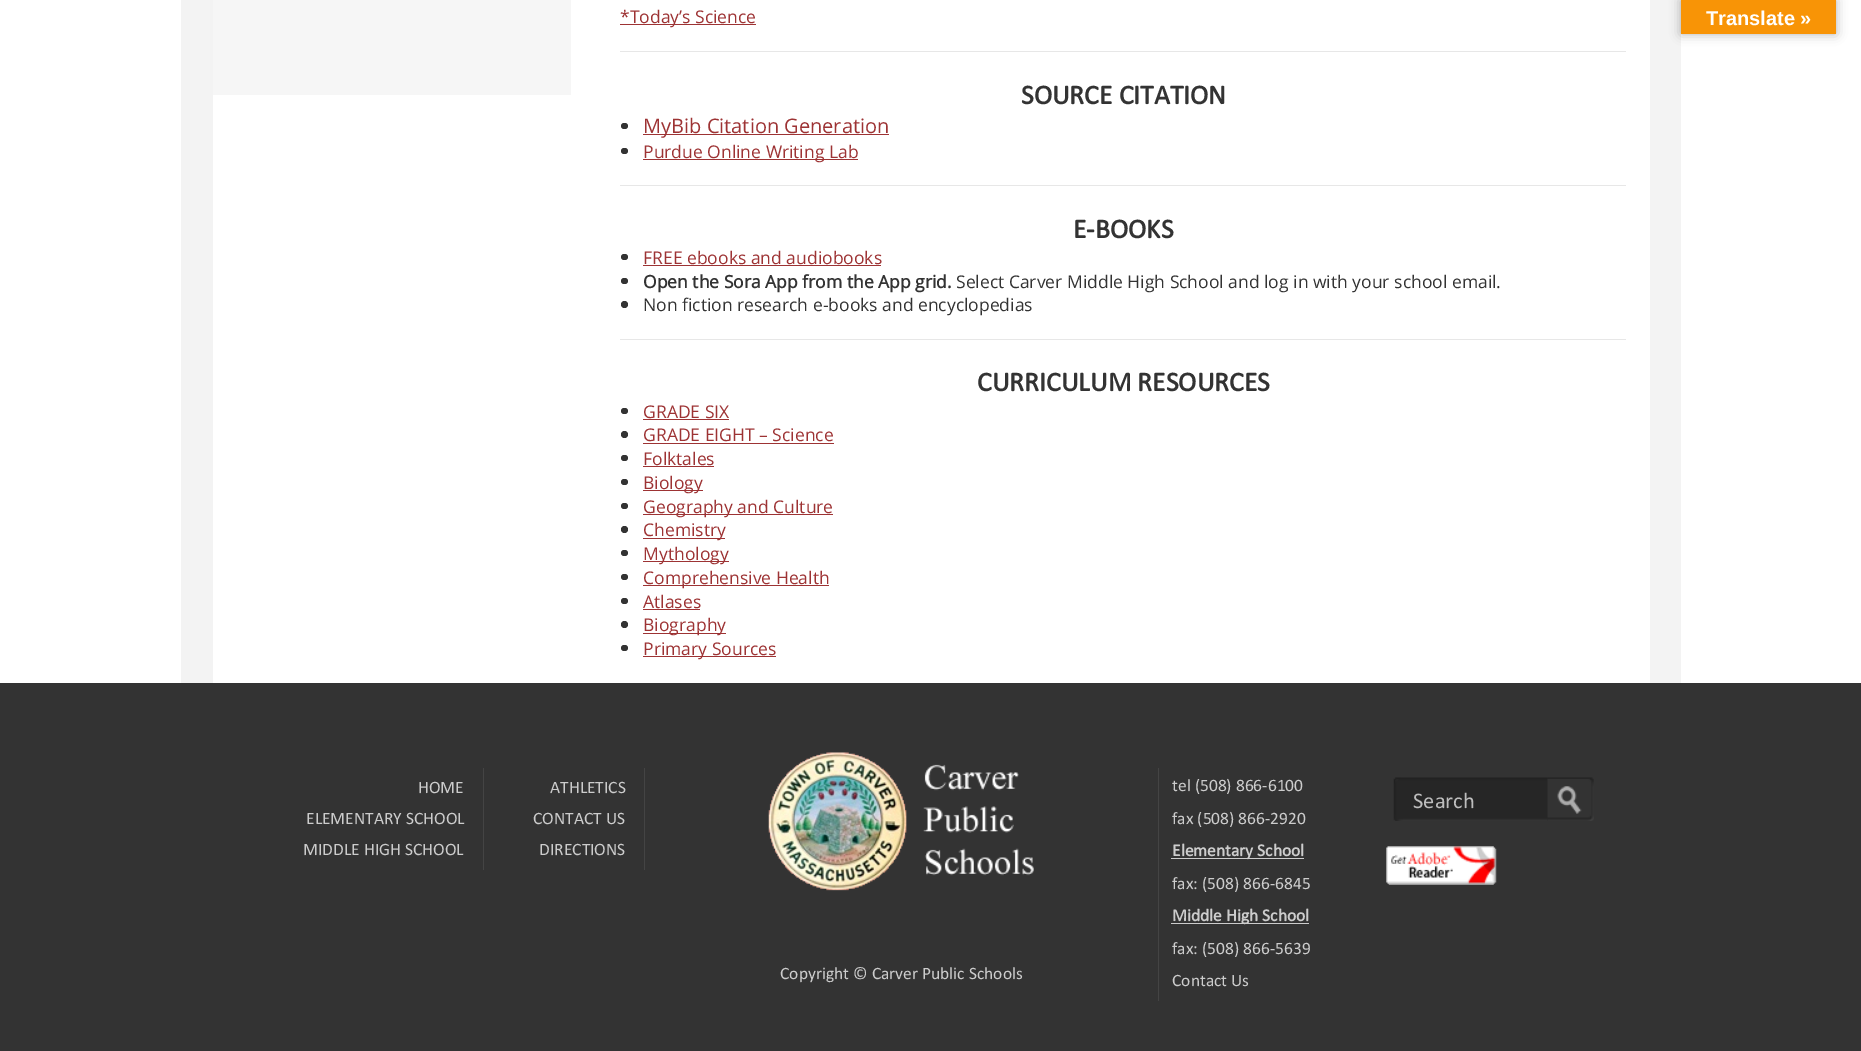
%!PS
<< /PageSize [1861 1051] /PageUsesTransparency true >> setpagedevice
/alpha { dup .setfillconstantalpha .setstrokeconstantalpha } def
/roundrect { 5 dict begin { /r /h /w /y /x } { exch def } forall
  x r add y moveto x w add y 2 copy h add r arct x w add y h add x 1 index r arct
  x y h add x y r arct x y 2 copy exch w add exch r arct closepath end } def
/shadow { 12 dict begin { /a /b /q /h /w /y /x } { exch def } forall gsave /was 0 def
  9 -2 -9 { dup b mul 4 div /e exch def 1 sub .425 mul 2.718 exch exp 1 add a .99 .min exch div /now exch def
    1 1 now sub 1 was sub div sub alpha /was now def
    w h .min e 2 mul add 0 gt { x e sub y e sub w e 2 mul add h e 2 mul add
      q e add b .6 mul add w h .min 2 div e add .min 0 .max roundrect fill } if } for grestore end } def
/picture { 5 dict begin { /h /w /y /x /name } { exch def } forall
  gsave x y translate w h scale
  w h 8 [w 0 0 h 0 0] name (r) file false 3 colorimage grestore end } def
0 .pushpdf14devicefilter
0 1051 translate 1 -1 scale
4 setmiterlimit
1 setgray
0 0 1861 1051 rectfill
0.953 setgray
181 0 1500 683 rectfill
1 setgray
213 0 1437 683 rectfill
0.965 setgray
213 0 358 95 rectfill
0.616 0.2 0.204 setrgbcolor
620 24 136 1 rectfill
/OpenSans-Regular [17.5 0 0 -17.5 0 0] selectfont
620 23 moveto (*Today’s Science) show
0.906 setgray
620 51 1006 1 rectfill
/Calibri-Bold [27.5 0 0 -27.5 0 0] selectfont
0.2 setgray
1021 104 moveto (SOURCE CITATION) show
621 123 7 6 3 roundrect fill
0.616 0.2 0.204 setrgbcolor
643 134 246 1 rectfill
/OpenSans-Regular [20 0 0 -20 0 0] selectfont
643 133 moveto (MyBib Citation Generation) show
0.2 setgray
621 148 7 6 3 roundrect fill
0.616 0.2 0.204 setrgbcolor
643 159 215 1 rectfill
/OpenSans-Regular [17.5 0 0 -17.5 0 0] selectfont
643 158 moveto (Purdue Online Writing Lab) show
0.906 setgray
620 185 1006 1 rectfill
/Calibri-Bold [27.5 0 0 -27.5 0 0] selectfont
0.2 setgray
1073 238 moveto (E-BOOKS) show
621 254 7 6 3 roundrect fill
/OpenSans-Regular [17.5 0 0 -17.5 0 0] selectfont
0.616 0.2 0.204 setrgbcolor
643 264 moveto (FREE ebooks and audiobooks) show
643 265 238 1 rectfill
0.2 setgray
621 278 7 6 3 roundrect fill
/OpenSans-Bold [17.5 0 0 -17.5 0 0] selectfont
643 288 moveto (Open the Sora App from the App grid.) show
/OpenSans-Regular [17.5 0 0 -17.5 0 0] selectfont
956 288 moveto (Select Carver Middle High School and log in with your school email.) show
newpath 624.5 304.5 3.5 0 360 arc closepath fill
643 311 moveto (Non fiction research e-books and encyclopedias) show
0.906 setgray
620 339 1006 1 rectfill
/Calibri-Bold [27.5 0 0 -27.5 0 0] selectfont
0.2 setgray
977 391 moveto (CURRICULUM RESOURCES) show
621 408 7 6 3 roundrect fill
/OpenSans-Regular [17.5 0 0 -17.5 0 0] selectfont
0.616 0.2 0.204 setrgbcolor
643 418 moveto (GRADE SIX) show
643 419 86 1 rectfill
0.2 setgray
newpath 624.5 434.5 3.5 0 360 arc closepath fill
0.616 0.2 0.204 setrgbcolor
643 441 moveto (GRADE EIGHT – Science) show
643 443 191 1 rectfill
0.2 setgray
621 455 7 6 3 roundrect fill
0.616 0.2 0.204 setrgbcolor
643 465 moveto (Folktales) show
643 466 71 1 rectfill
0.2 setgray
621 479 7 6 3 roundrect fill
0.616 0.2 0.204 setrgbcolor
643 490 60 1 rectfill
643 489 moveto (Biology) show
0.2 setgray
621 503 7 6 3 roundrect fill
0.616 0.2 0.204 setrgbcolor
643 514 190 1 rectfill
643 513 moveto (Geography and Culture) show
0.2 setgray
newpath 624.5 529.5 3.5 0 360 arc closepath fill
0.616 0.2 0.204 setrgbcolor
643 538 82 1 rectfill
643 536 moveto (Chemistry) show
0.2 setgray
621 550 7 6 3 roundrect fill
0.616 0.2 0.204 setrgbcolor
643 561 86 1 rectfill
643 560 moveto (Mythology) show
0.2 setgray
621 574 7 6 3 roundrect fill
0.616 0.2 0.204 setrgbcolor
643 585 186 1 rectfill
643 584 moveto (Comprehensive Health) show
0.2 setgray
621 598 7 6 3 roundrect fill
0.616 0.2 0.204 setrgbcolor
643 608 moveto (Atlases) show
643 609 57 1 rectfill
0.2 setgray
newpath 624.5 624.5 3.5 0 360 arc closepath fill
0.616 0.2 0.204 setrgbcolor
643 633 83 1 rectfill
643 631 moveto (Biography) show
0.2 setgray
621 645 7 6 3 roundrect fill
0.616 0.2 0.204 setrgbcolor
643 656 133 1 rectfill
643 655 moveto (Primary Sources) show
0.2 setgray
0 683 1861 368 rectfill
0.267 setgray
483 768 1 102 rectfill
/Calibri-Regular [17.5 0 0 -17.5 0 0] selectfont
0.8 setgray
418 793 moveto (HOME) show
306 824 moveto (ELEMENTARY SCHOOL) show
303 855 moveto (MIDDLE HIGH SCHOOL) show
0.267 setgray
644 768 1 102 rectfill
0.8 setgray
550 793 moveto (ATHLETICS) show
533 824 moveto (CONTACT US) show
539 855 moveto (DIRECTIONS) show
0.267 setgray
1158 768 1 233 rectfill
0.8 setgray
1172 791 moveto (tel \(508\) 866-6100) show
1172 824 moveto (fax \(508\) 866-2920) show
1171 858 133 1 rectfill
/Calibri-Bold [17.5 0 0 -17.5 0 0] selectfont
1172 856 moveto (Elementary School) show
/Calibri-Regular [17.5 0 0 -17.5 0 0] selectfont
1172 889 moveto (fax: \(508\) 866-6845) show
1171 923 138 1 rectfill
/Calibri-Bold [17.5 0 0 -17.5 0 0] selectfont
1172 921 moveto (Middle High School) show
/Calibri-Regular [17.5 0 0 -17.5 0 0] selectfont
1172 954 moveto (fax: \(508\) 866-5639) show
1172 986 moveto (Contact Us) show
(img1.rgb) 1393 777 155 44 picture
/Calibri-Regular [22.5 0 0 -22.5 0 0] selectfont
0.741 setgray
1413 808 moveto (Search) show
(img2.rgb) 1547 777 47 44 picture
(img3.rgb) 1386 846 111 39 picture
(img4.rgb) 768 752 266 139 picture
/Calibri-Regular [17.5 0 0 -17.5 0 0] selectfont
0.8 setgray
780 979 moveto (Copyright © Carver Public Schools) show
0 setgray
1681 0 155 34 0 5.5 0.3 shadow
0.973 0.58 0.024 setrgbcolor
1681 0 155 34 rectfill
/LiberationSans-Bold [20 0 0 -20 0 0] selectfont
1 setgray
1706 25 moveto (Translate ») show
.poppdf14devicefilter showpage
